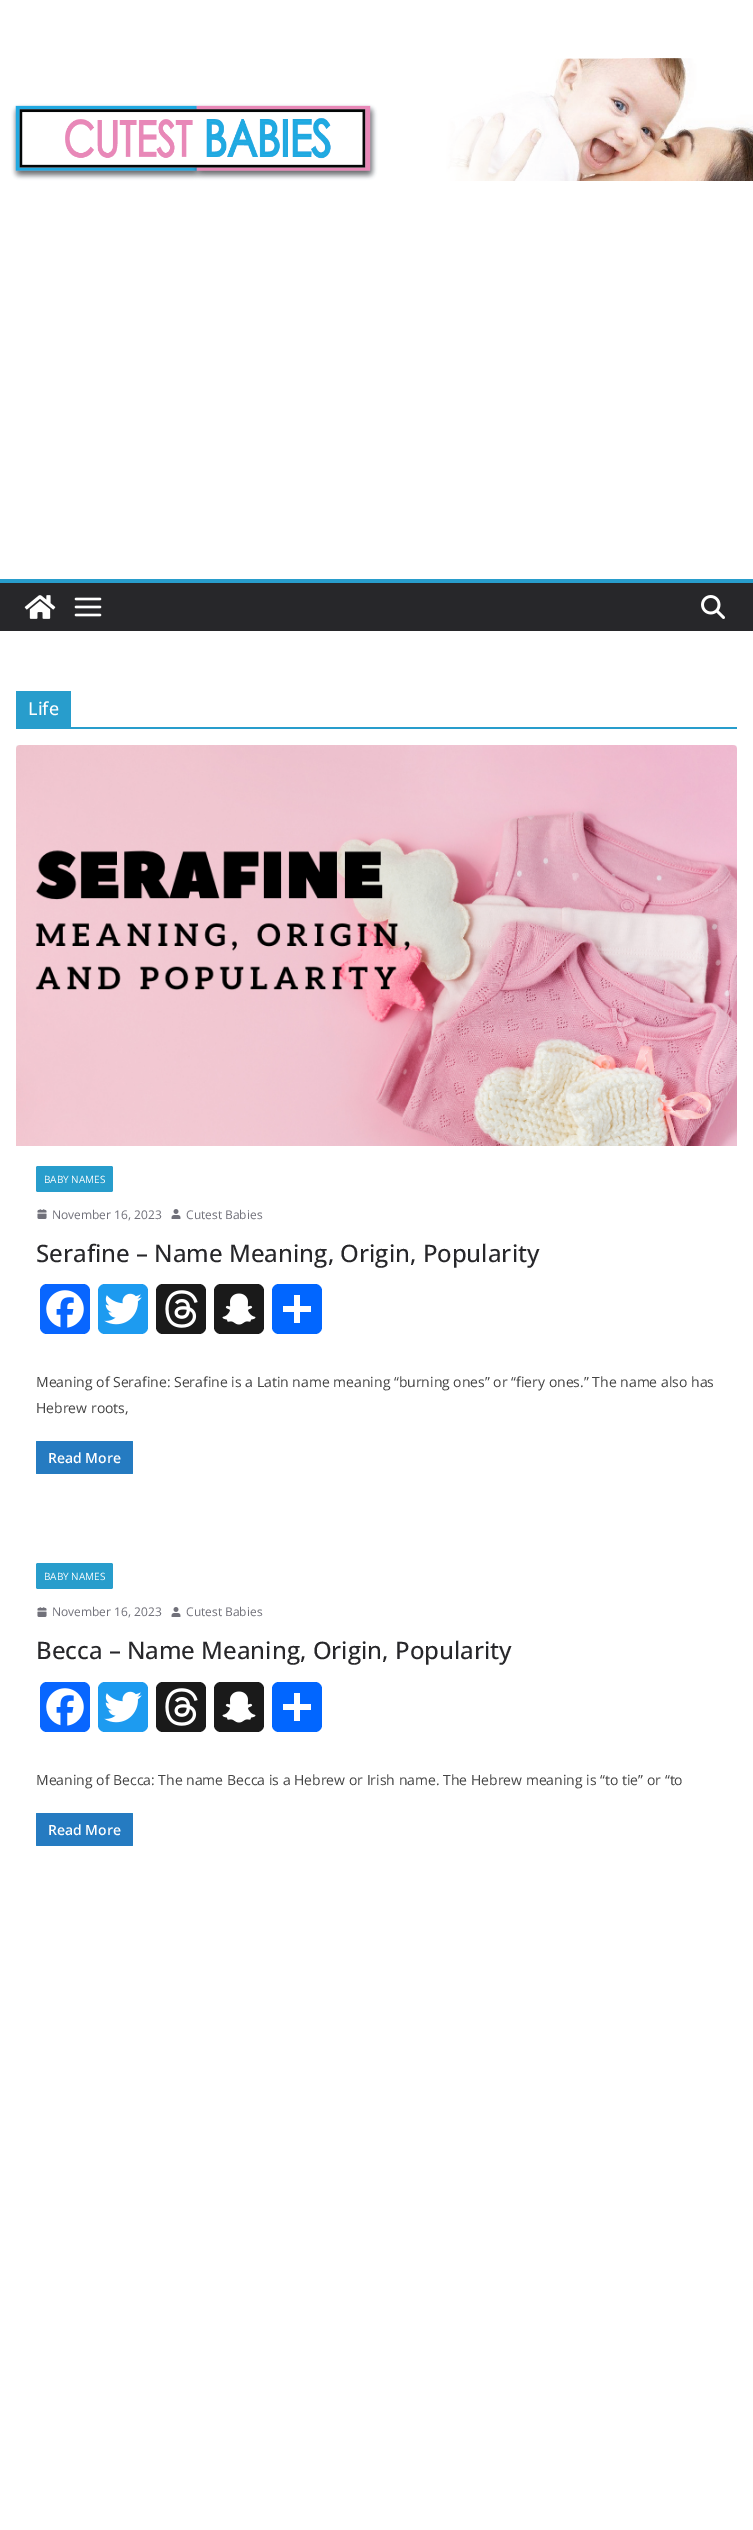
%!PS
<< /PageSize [753 2530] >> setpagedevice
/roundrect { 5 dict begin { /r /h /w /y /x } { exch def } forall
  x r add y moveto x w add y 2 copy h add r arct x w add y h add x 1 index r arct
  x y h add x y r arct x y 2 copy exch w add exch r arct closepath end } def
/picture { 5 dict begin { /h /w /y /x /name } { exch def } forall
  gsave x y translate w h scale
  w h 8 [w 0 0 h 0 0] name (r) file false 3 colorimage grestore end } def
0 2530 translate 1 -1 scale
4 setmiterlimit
1 setgray
0 0 753 2530 rectfill
(img1.rgb) 11 58 742 123 picture
0.153 0.153 0.165 setrgbcolor
0 583 753 48 rectfill
0.157 0.616 0.8 setrgbcolor
0 579 753 4 rectfill
(img2.rgb) 24 595 32 24 picture
(img3.rgb) 74 597 28 20 picture
(img4.rgb) 701 595 24 24 picture
16 727 721 2 rectfill
16 691 55 36 rectfill
/OpenSans-Medium [18 0 0 -18 0 0] selectfont
1 setgray
28 715 moveto (Life) show
(img5.rgb) 16 745 721 401 picture
0.157 0.616 0.8 setrgbcolor
36 1166 77 26 2 roundrect fill
/OpenSans-Regular [10 0 0 -10 0 0] selectfont
1 setgray
44 1183 moveto (BABY NAMES) show
(img6.rgb) 37 1209 10 10 picture
/OpenSans-Regular [12 0 0 -12 0 0] selectfont
0.443 0.443 0.478 setrgbcolor
52 1219 moveto (November 16, 2023) show
(img7.rgb) 171 1209 10 10 picture
186 1219 moveto (Cutest Babies) show
/OpenSans-Medium [24 0 0 -24 0 0] selectfont
0.153 0.153 0.165 setrgbcolor
36 1262 moveto (Serafine – Name Meaning, Origin, Popularity) show
0.031 0.4 1 setrgbcolor
40 1284 50 50 7 roundrect fill
(img8.rgb) 46 1290 38 38 picture
0.114 0.608 0.941 setrgbcolor
98 1284 50 50 7 roundrect fill
(img9.rgb) 104 1293 38 32 picture
0.102 setgray
156 1284 50 50 7 roundrect fill
(img10.rgb) 165 1290 33 38 picture
214 1284 50 50 7 roundrect fill
(img11.rgb) 222 1293 34 32 picture
0.004 0.4 1 setrgbcolor
272 1284 50 50 7 roundrect fill
1 setgray
294 1295 6 28 rectfill
283 1306 28 6 rectfill
/OpenSans-Regular [14 0 0 -14 0 0] selectfont
0.267 setgray
36 1387 moveto (Meaning of Serafine: Serafine is a Latin name meaning “burning ones” or “fiery ones.” The name also has) show
36 1413 moveto (Hebrew roots,) show
0.157 0.616 0.8 setrgbcolor
36 1441 97 33 rectfill
0.145 0.482 0.757 setrgbcolor
36 1441 97 33 2 roundrect fill
/OpenSans-SemiBold [14 0 0 -14 0 0] selectfont
1 setgray
48 1463 moveto (Read More) show
0.157 0.616 0.8 setrgbcolor
36 1563 77 26 2 roundrect fill
/OpenSans-Regular [10 0 0 -10 0 0] selectfont
1 setgray
44 1580 moveto (BABY NAMES) show
(img6.rgb) 37 1607 10 10 picture
/OpenSans-Regular [12 0 0 -12 0 0] selectfont
0.443 0.443 0.478 setrgbcolor
52 1616 moveto (November 16, 2023) show
(img7.rgb) 171 1607 10 10 picture
186 1616 moveto (Cutest Babies) show
/OpenSans-Medium [24 0 0 -24 0 0] selectfont
0.153 0.153 0.165 setrgbcolor
36 1659 moveto (Becca – Name Meaning, Origin, Popularity) show
0.031 0.4 1 setrgbcolor
40 1682 50 50 7 roundrect fill
(img8.rgb) 46 1688 38 38 picture
0.114 0.608 0.941 setrgbcolor
98 1682 50 50 7 roundrect fill
(img9.rgb) 104 1691 38 32 picture
0.102 setgray
156 1682 50 50 7 roundrect fill
(img10.rgb) 165 1688 33 38 picture
214 1682 50 50 7 roundrect fill
(img11.rgb) 222 1691 34 32 picture
0.004 0.4 1 setrgbcolor
272 1682 50 50 7 roundrect fill
1 setgray
294 1693 6 28 rectfill
283 1704 28 6 rectfill
/OpenSans-Regular [14 0 0 -14 0 0] selectfont
0.267 setgray
36 1785 moveto (Meaning of Becca: The name Becca is a Hebrew or Irish name. The Hebrew meaning is “to tie” or “to) show
0.157 0.616 0.8 setrgbcolor
36 1813 97 33 rectfill
0.145 0.482 0.757 setrgbcolor
36 1813 97 33 2 roundrect fill
/OpenSans-SemiBold [14 0 0 -14 0 0] selectfont
1 setgray
48 1835 moveto (Read More) show
showpage
